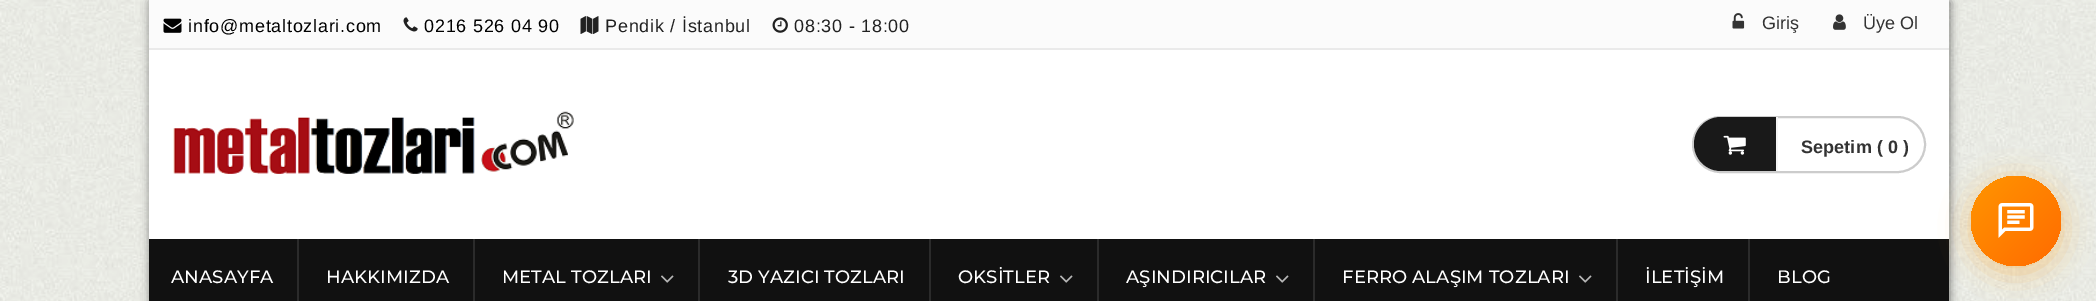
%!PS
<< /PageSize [2096 301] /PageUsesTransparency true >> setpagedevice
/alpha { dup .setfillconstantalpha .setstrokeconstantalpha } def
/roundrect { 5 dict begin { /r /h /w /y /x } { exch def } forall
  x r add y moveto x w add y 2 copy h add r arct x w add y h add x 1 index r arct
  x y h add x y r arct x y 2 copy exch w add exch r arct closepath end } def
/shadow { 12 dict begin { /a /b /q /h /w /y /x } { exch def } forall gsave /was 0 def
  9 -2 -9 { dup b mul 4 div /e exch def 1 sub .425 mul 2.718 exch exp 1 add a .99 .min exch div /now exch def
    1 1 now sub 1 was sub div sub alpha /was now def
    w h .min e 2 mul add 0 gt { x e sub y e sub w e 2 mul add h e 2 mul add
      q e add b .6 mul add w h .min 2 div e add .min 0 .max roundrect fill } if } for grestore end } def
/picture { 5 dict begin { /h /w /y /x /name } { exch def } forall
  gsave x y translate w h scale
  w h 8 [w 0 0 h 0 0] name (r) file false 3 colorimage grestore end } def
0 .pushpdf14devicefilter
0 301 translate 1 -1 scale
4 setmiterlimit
1 setgray
0 0 2096 301 rectfill
(img1.rgb) 0 0 2096 301 picture
0 setgray
150 2 1800 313 0 4.5 0.5 shadow
1 setgray
149 50 1800 189 rectfill
0.984 setgray
149 0 1800 48 rectfill
0.918 setgray
149 48 1800 2 rectfill
(img2.rgb) 163 18 19 15 picture
/LiberationSans-Regular [18 0 0 -18 0 0] selectfont
0 setgray
188 32 moveto 0.75 0 (info@metaltozlari.com) ashow
(img3.rgb) 403 17 15 15 picture
424 32 moveto 0.75 0 (0216 526 04 90) ashow
(img4.rgb) 580 16 19 18 picture
0.129 setgray
605 32 moveto 0.75 0 (Pendik / İstanbul) ashow
(img5.rgb) 772 17 16 16 picture
794 32 moveto 0.75 0 (08:30 - 18:00) ashow
(img6.rgb) 1732 13 13 16 picture
0.2 setgray
1762 29 moveto 0.1 0 (Giriş) ashow
(img7.rgb) 1833 14 13 16 picture
1863 29 moveto 0.1 0 (Üye Ol) ashow
(img8.rgb) 173 111 401 63 picture
0.8 setgray
2 setlinewidth
1693 117 232 55 27.5 roundrect stroke
0.098 setgray
newpath 1721 117 moveto 1778 117 lineto 1778 171 lineto 1721 171 lineto 1706 171 1694 159 1694 144 curveto 1694 129 1706 117 1721 117 curveto closepath fill
0.961 setgray
1776 117 2 54 rectfill
(img9.rgb) 1723 135 23 20 picture
/LiberationSans-Bold [18 0 0 -18 0 0] selectfont
0.2 setgray
1801 153 moveto 0.1 0 (Sepetim \( 0 \)) ashow
0.067 setgray
149 239 1800 62 rectfill
0.169 setgray
297 239 2 62 rectfill
/Montserrat-Medium [18 0 0 -18 0 0] selectfont
1 setgray
171 283 moveto 0.1 0 (ANASAYFA) ashow
0.169 setgray
473 239 2 62 rectfill
1 setgray
326 283 moveto 0.1 0 (HAKKIMIZDA) ashow
0.169 setgray
698 239 2 62 rectfill
1 setgray
502 283 moveto 0.1 0 (METAL TOZLARI) ashow
(img10.rgb) 661 275 13 8 picture
0.169 setgray
929 239 2 62 rectfill
1 setgray
728 283 moveto 0.1 0 (3D YAZICI TOZLARI) ashow
0.169 setgray
1097 239 2 62 rectfill
1 setgray
958 283 moveto 0.1 0 (OKSİTLER) ashow
(img10.rgb) 1060 275 13 8 picture
0.169 setgray
1313 239 2 62 rectfill
1 setgray
1126 283 moveto 0.1 0 (AŞINDIRICILAR) ashow
(img10.rgb) 1276 275 13 8 picture
0.169 setgray
1616 239 2 62 rectfill
1 setgray
1342 283 moveto 0.1 0 (FERRO ALAŞIM TOZLARI) ashow
(img10.rgb) 1579 275 13 8 picture
0.169 setgray
1748 239 2 62 rectfill
1 setgray
1645 283 moveto 0.1 0 (İLETİŞİM) ashow
1777 283 moveto 0.1 0 (BLOG) ashow
1 0.584 0 setrgbcolor
1971 182 90 90 45 15 0.4 shadow
gsave newpath 2016 221 45 0 360 arc closepath clip newpath
<< /ShadingType 2 /ColorSpace /DeviceRGB /Coords [1971 176 2061 266] /Extend [true true] /Function << /FunctionType 2 /Domain [0 1] /C0 [1 0.584 0] /C1 [1 0.42 0] /N 1 >> >> shfill grestore
(img11.rgb) 1998 203 36 35 picture
.poppdf14devicefilter showpage
